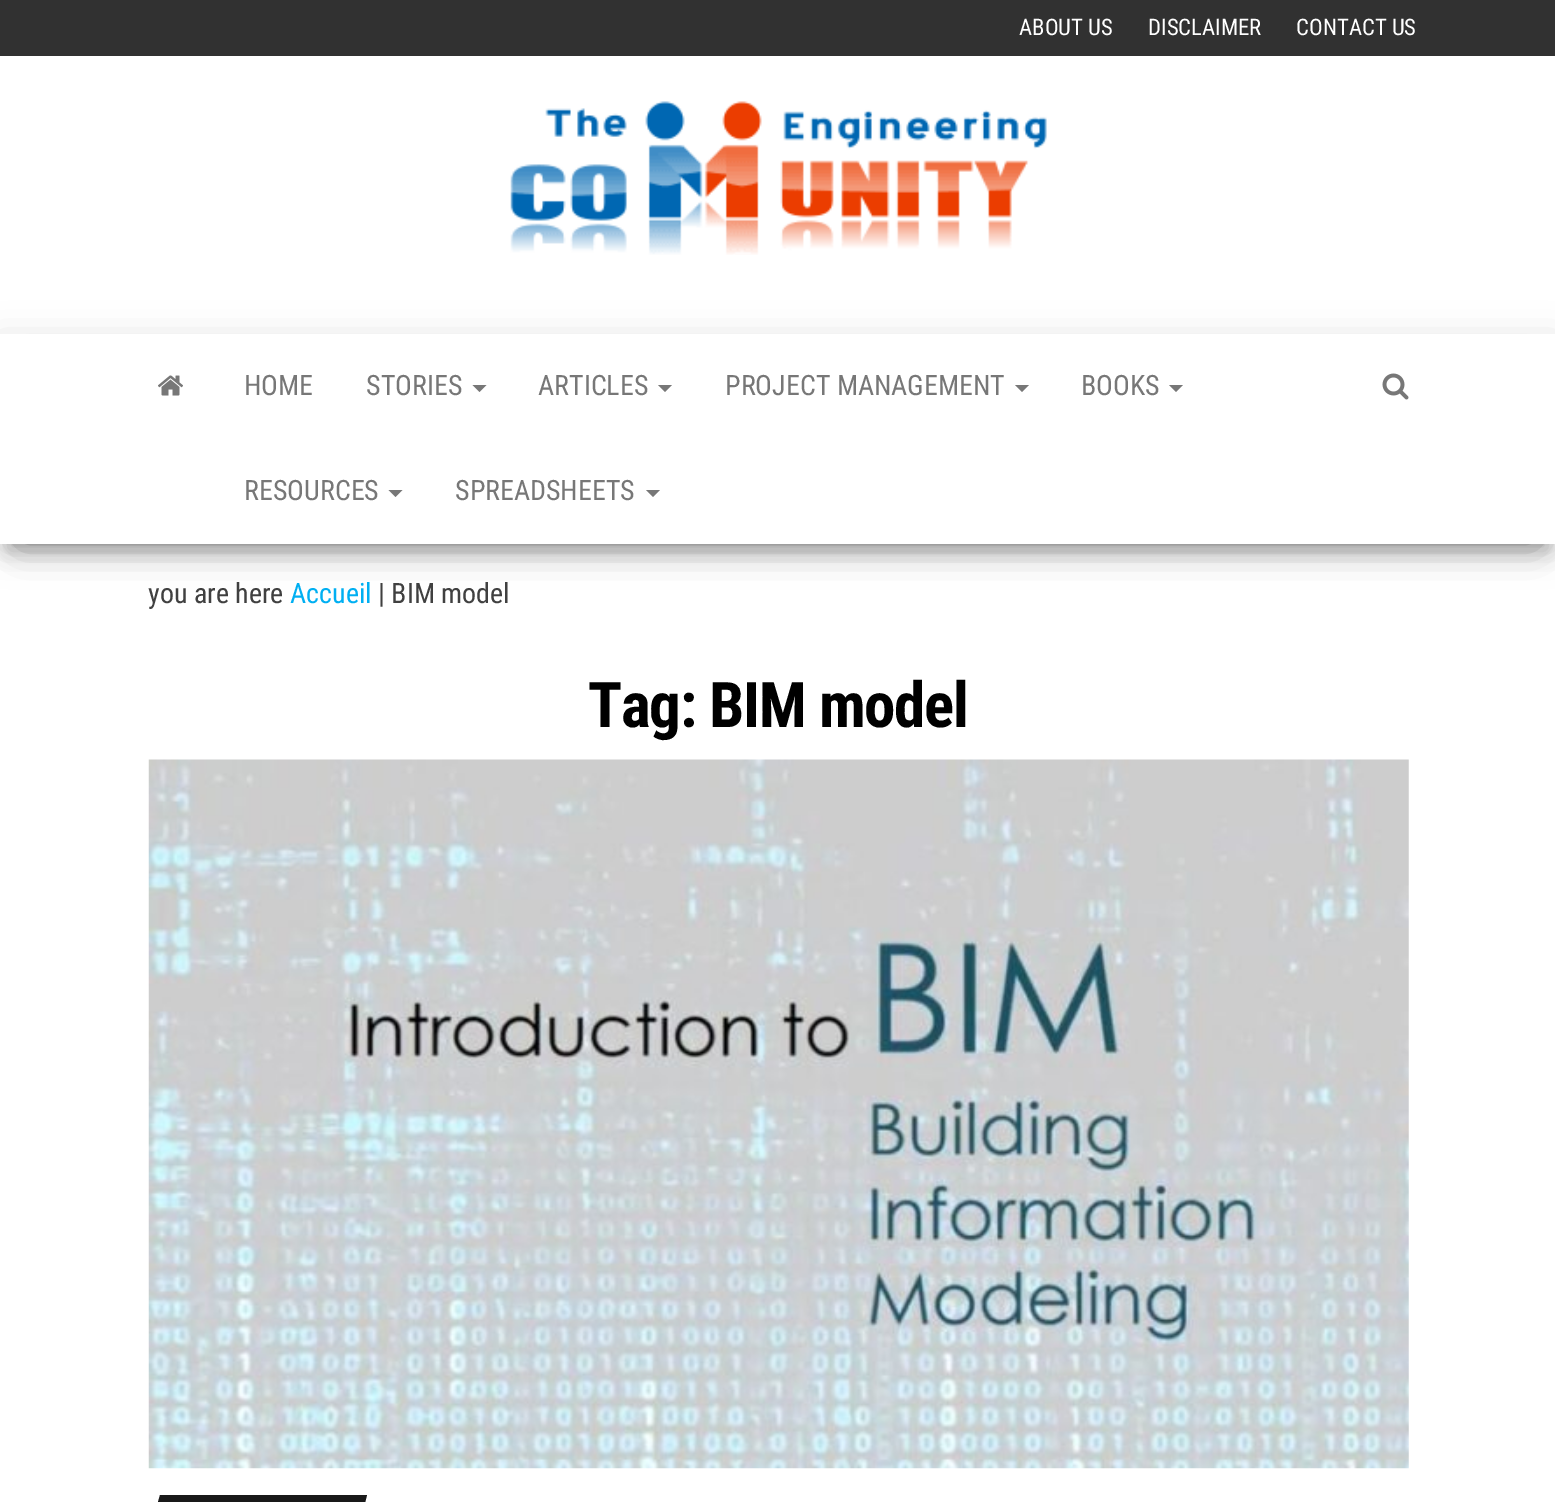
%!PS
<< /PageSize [1555 1502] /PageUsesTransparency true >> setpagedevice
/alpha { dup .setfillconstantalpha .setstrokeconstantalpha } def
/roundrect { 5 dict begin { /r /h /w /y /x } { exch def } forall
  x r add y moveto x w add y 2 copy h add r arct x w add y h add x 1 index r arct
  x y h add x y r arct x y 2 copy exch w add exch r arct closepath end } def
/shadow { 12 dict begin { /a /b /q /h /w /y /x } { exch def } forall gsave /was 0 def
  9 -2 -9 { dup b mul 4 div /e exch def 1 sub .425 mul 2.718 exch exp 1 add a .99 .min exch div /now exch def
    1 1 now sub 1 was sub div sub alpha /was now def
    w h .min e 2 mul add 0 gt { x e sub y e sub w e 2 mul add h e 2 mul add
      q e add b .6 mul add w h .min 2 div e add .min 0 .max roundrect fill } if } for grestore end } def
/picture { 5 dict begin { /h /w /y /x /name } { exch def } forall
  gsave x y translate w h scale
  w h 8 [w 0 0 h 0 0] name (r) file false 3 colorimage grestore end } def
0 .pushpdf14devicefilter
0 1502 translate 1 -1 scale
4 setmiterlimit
1 setgray
0 0 1555 1502 rectfill
0.192 setgray
0 0 1555 56 rectfill
/RobotoCondensed-Regular [22.75 0 0 -22.75 0 0] selectfont
1 setgray
1019 35 moveto (ABOUT US) show
1148 35 moveto (DISCLAIMER) show
1296 35 moveto (CONTACT US) show
(img1.rgb) 510 101 537 154 picture
0 setgray
9 357 1538 193 0 9 0.2 shadow
0 340 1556 210 0 17.5 0.12 shadow
21 373 1514 168 0 17.5 0.42 shadow
1 setgray
0 334 1555 210 rectfill
(img2.rgb) 158 375 25 21 picture
/RobotoCondensed-Regular [28 0 0 -28 0 0] selectfont
0.467 setgray
244 395 moveto (HOME) show
366 395 moveto (STORIES) show
newpath 472.5 385 moveto 486.5 385 lineto 479.5 392 lineto closepath fill
538 395 moveto (ARTICLES) show
newpath 658 385 moveto 672 385 lineto 665 392 lineto closepath fill
725 395 moveto (PROJECT MANAGEMENT) show
newpath 1015 385 moveto 1029 385 lineto 1022 392 lineto closepath fill
1081 395 moveto (BOOKS) show
newpath 1169 385 moveto 1183 385 lineto 1176 392 lineto closepath fill
244 500 moveto (RESOURCES) show
newpath 388.5 490 moveto 402.5 490 lineto 395.5 497 lineto closepath fill
455 500 moveto (SPREADSHEETS) show
newpath 646 490 moveto 660 490 lineto 653 497 lineto closepath fill
(img3.rgb) 1382 373 27 27 picture
0.251 setgray
148 603 moveto (you are here) show
0 0.686 0.949 setrgbcolor
290 603 moveto (Accueil) show
0.251 setgray
378 603 moveto (| BIM model) show
/RobotoCondensed-Bold [63 0 0 -63 0 0] selectfont
0 setgray
588 727 moveto -1.25 0 (Tag: BIM model) ashow
(img4.rgb) 148 759 1261 710 picture
0.098 setgray
newpath 160 1495 moveto 367 1495 lineto 358 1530 lineto 150 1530 lineto closepath fill
.poppdf14devicefilter showpage
